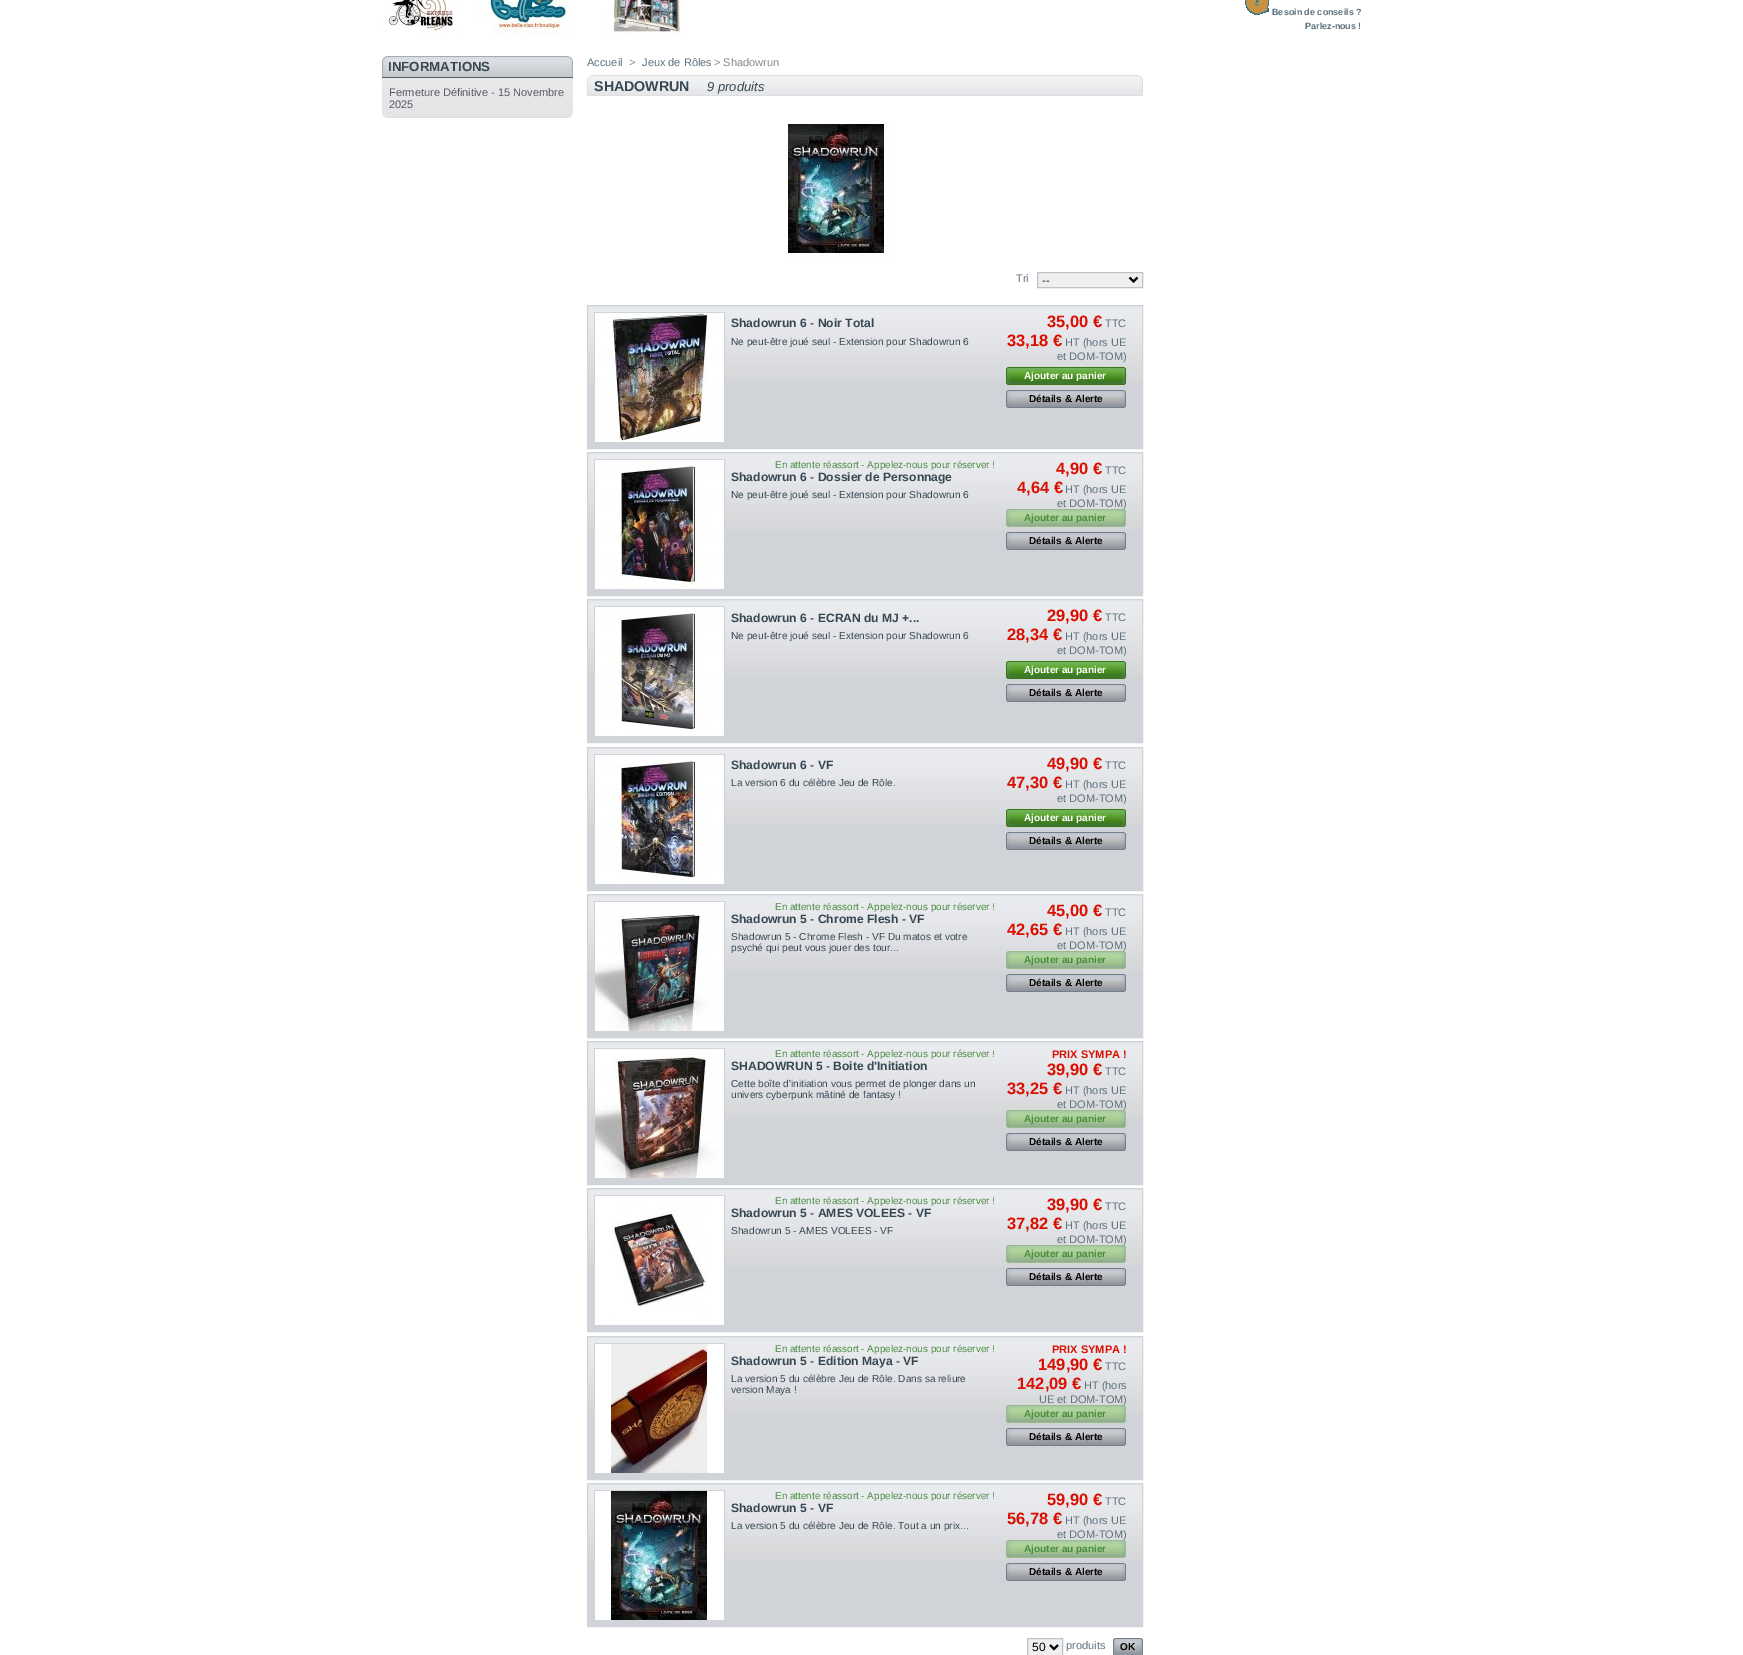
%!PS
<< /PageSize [1743 1655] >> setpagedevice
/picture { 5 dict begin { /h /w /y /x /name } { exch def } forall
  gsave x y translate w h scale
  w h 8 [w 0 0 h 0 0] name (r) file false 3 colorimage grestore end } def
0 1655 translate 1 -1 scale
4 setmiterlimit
1 setgray
0 0 1743 1655 rectfill
(img1.rgb) 383 0 299 34 picture
(img2.rgb) 1245 0 24 15 picture
/LiberationSans-Bold [9 0 0 -9 0 0] selectfont
0.365 0.443 0.494 setrgbcolor
1272 15 moveto (Besoin de conseils ?) show
1305 29 moveto (Parlez-nous !) show
(img3.rgb) 382 112 191 6 picture
(img4.rgb) 382 56 191 21 picture
0.349 0.353 0.369 setrgbcolor
382 77 191 1 rectfill
/LiberationSans-Bold [13.25 0 0 -13.25 0 0] selectfont
0.216 0.282 0.325 setrgbcolor
388 71 moveto (INFORMATIONS) show
(img5.rgb) 382 78 191 34 picture
/LiberationSans-Regular [11 0 0 -11 0 0] selectfont
0.349 0.353 0.369 setrgbcolor
389 96 moveto (Fermeture Définitive - 15 Novembre) show
389 108 moveto (2025) show
0.365 0.443 0.494 setrgbcolor
587 66 moveto (Accueil) show
0.533 setgray
629 66 moveto (>) show
0.365 0.443 0.494 setrgbcolor
642 66 moveto (Jeux de Rôles) show
0.533 setgray
714 66 moveto (> Shadowrun) show
(img6.rgb) 587 75 556 21 picture
/LiberationSans-Bold [14.25 0 0 -14.25 0 0] selectfont
0.216 0.282 0.325 setrgbcolor
594 91 moveto (SHADOWRUN) show
/LiberationSans-Italic [13 0 0 -13 0 0] selectfont
707 91 moveto (9 produits) show
(img7.rgb) 787 122 104 136 picture
/LiberationSans-Regular [11 0 0 -11 0 0] selectfont
0.365 0.443 0.494 setrgbcolor
1016 282 moveto (Tri) show
0.937 setgray
newpath 1037.5 272.5 moveto 1142.5 272.5 lineto 1142.5 287.5 lineto 1037.5 287.5 lineto closepath gsave fill grestore
0.741 0.761 0.788 setrgbcolor
stroke
0 setgray
2 setlinewidth
newpath 1129.5 277.5 moveto 1133.5 281.5 lineto 1137.5 277.5 lineto stroke
1042 284 moveto (--) show
0.816 0.827 0.847 setrgbcolor
588 383 554 65 rectfill
(img8.rgb) 588 306 554 77 picture
1 setlinewidth
587.5 305.5 555 143 rectstroke
594.5 312.5 130 130 rectstroke
(img9.rgb) 595 313 129 129 picture
/LiberationSans-Bold [12.1 0 0 -12.1 0 0] selectfont
0.216 0.282 0.325 setrgbcolor
731 327 moveto (Shadowrun 6 - Noir Total) show
/LiberationSans-Regular [10.1 0 0 -10.1 0 0] selectfont
731 345 moveto (Ne peut-être joué seul - Extension pour Shadowrun 6) show
/LiberationSans-Bold [16.5 0 0 -16.5 0 0] selectfont
0.855 0.059 0 setrgbcolor
1047 327 moveto (35,00 €) show
/LiberationSans-Regular [11 0 0 -11 0 0] selectfont
0.365 0.443 0.494 setrgbcolor
1105 327 moveto (TTC) show
/LiberationSans-Bold [16.5 0 0 -16.5 0 0] selectfont
0.855 0.059 0 setrgbcolor
1007 346 moveto (33,18 €) show
/LiberationSans-Regular [11 0 0 -11 0 0] selectfont
0.365 0.443 0.494 setrgbcolor
1065 346 moveto (HT \(hors UE) show
1057 360 moveto (et DOM-TOM\)) show
(img10.rgb) 1006 367 120 18 picture
/LiberationSans-Bold [10 0 0 -10 0 0] selectfont
1 setgray
1024 379 moveto (Ajouter au panier) show
(img11.rgb) 1006 390 120 18 picture
0 setgray
1029 402 moveto (Détails & Alerte) show
0.816 0.827 0.847 setrgbcolor
588 530 554 65 rectfill
(img8.rgb) 588 453 554 77 picture
587.5 452.5 555 143 rectstroke
594.5 459.5 130 130 rectstroke
(img12.rgb) 595 460 129 129 picture
/LiberationSans-Regular [9.9 0 0 -9.9 0 0] selectfont
0.282 0.549 0.251 setrgbcolor
775 468 moveto (En attente réassort - Appelez-nous pour réserver !) show
/LiberationSans-Bold [12.1 0 0 -12.1 0 0] selectfont
0.216 0.282 0.325 setrgbcolor
731 481 moveto (Shadowrun 6 - Dossier de Personnage) show
/LiberationSans-Regular [10.1 0 0 -10.1 0 0] selectfont
731 498 moveto (Ne peut-être joué seul - Extension pour Shadowrun 6) show
/LiberationSans-Bold [16.5 0 0 -16.5 0 0] selectfont
0.855 0.059 0 setrgbcolor
1056 474 moveto (4,90 €) show
/LiberationSans-Regular [11 0 0 -11 0 0] selectfont
0.365 0.443 0.494 setrgbcolor
1105 474 moveto (TTC) show
/LiberationSans-Bold [16.5 0 0 -16.5 0 0] selectfont
0.855 0.059 0 setrgbcolor
1017 493 moveto (4,64 €) show
/LiberationSans-Regular [11 0 0 -11 0 0] selectfont
0.365 0.443 0.494 setrgbcolor
1065 493 moveto (HT \(hors UE) show
(img13.rgb) 1006 509 120 18 picture
1057 507 moveto (et DOM-TOM\)) show
/LiberationSans-Bold [10 0 0 -10 0 0] selectfont
0.282 0.549 0.251 setrgbcolor
1024 521 moveto (Ajouter au panier) show
(img11.rgb) 1006 532 120 18 picture
0 setgray
1029 544 moveto (Détails & Alerte) show
0.816 0.827 0.847 setrgbcolor
588 677 554 65 rectfill
(img8.rgb) 588 600 554 77 picture
587.5 599.5 555 143 rectstroke
594.5 606.5 130 130 rectstroke
(img14.rgb) 595 607 129 129 picture
/LiberationSans-Bold [12.1 0 0 -12.1 0 0] selectfont
0.216 0.282 0.325 setrgbcolor
731 622 moveto (Shadowrun 6 - ECRAN du MJ +...) show
/LiberationSans-Regular [10.1 0 0 -10.1 0 0] selectfont
731 639 moveto (Ne peut-être joué seul - Extension pour Shadowrun 6) show
/LiberationSans-Bold [16.5 0 0 -16.5 0 0] selectfont
0.855 0.059 0 setrgbcolor
1047 621 moveto (29,90 €) show
/LiberationSans-Regular [11 0 0 -11 0 0] selectfont
0.365 0.443 0.494 setrgbcolor
1105 621 moveto (TTC) show
/LiberationSans-Bold [16.5 0 0 -16.5 0 0] selectfont
0.855 0.059 0 setrgbcolor
1007 640 moveto (28,34 €) show
/LiberationSans-Regular [11 0 0 -11 0 0] selectfont
0.365 0.443 0.494 setrgbcolor
1065 640 moveto (HT \(hors UE) show
1057 654 moveto (et DOM-TOM\)) show
(img10.rgb) 1006 661 120 18 picture
/LiberationSans-Bold [10 0 0 -10 0 0] selectfont
1 setgray
1024 673 moveto (Ajouter au panier) show
(img11.rgb) 1006 684 120 18 picture
0 setgray
1029 696 moveto (Détails & Alerte) show
0.816 0.827 0.847 setrgbcolor
588 825 554 65 rectfill
(img8.rgb) 588 748 554 77 picture
587.5 747.5 555 143 rectstroke
594.5 754.5 130 130 rectstroke
(img15.rgb) 595 755 129 129 picture
/LiberationSans-Bold [12.1 0 0 -12.1 0 0] selectfont
0.216 0.282 0.325 setrgbcolor
731 769 moveto (Shadowrun 6 - VF) show
/LiberationSans-Regular [10.1 0 0 -10.1 0 0] selectfont
731 786 moveto (La version 6 du célèbre Jeu de Rôle.) show
/LiberationSans-Bold [16.5 0 0 -16.5 0 0] selectfont
0.855 0.059 0 setrgbcolor
1047 769 moveto (49,90 €) show
/LiberationSans-Regular [11 0 0 -11 0 0] selectfont
0.365 0.443 0.494 setrgbcolor
1105 769 moveto (TTC) show
/LiberationSans-Bold [16.5 0 0 -16.5 0 0] selectfont
0.855 0.059 0 setrgbcolor
1007 788 moveto (47,30 €) show
/LiberationSans-Regular [11 0 0 -11 0 0] selectfont
0.365 0.443 0.494 setrgbcolor
1065 788 moveto (HT \(hors UE) show
1057 802 moveto (et DOM-TOM\)) show
(img10.rgb) 1006 809 120 18 picture
/LiberationSans-Bold [10 0 0 -10 0 0] selectfont
1 setgray
1024 821 moveto (Ajouter au panier) show
(img11.rgb) 1006 832 120 18 picture
0 setgray
1029 844 moveto (Détails & Alerte) show
0.816 0.827 0.847 setrgbcolor
588 972 554 65 rectfill
(img8.rgb) 588 895 554 77 picture
587.5 894.5 555 143 rectstroke
594.5 901.5 130 130 rectstroke
(img16.rgb) 595 902 129 129 picture
/LiberationSans-Regular [9.9 0 0 -9.9 0 0] selectfont
0.282 0.549 0.251 setrgbcolor
775 910 moveto (En attente réassort - Appelez-nous pour réserver !) show
/LiberationSans-Bold [12.1 0 0 -12.1 0 0] selectfont
0.216 0.282 0.325 setrgbcolor
731 923 moveto (Shadowrun 5 - Chrome Flesh - VF) show
/LiberationSans-Regular [10.1 0 0 -10.1 0 0] selectfont
731 940 moveto (Shadowrun 5 - Chrome Flesh - VF Du matos et votre) show
731 951 moveto (psyché qui peut vous jouer des tour...) show
/LiberationSans-Bold [16.5 0 0 -16.5 0 0] selectfont
0.855 0.059 0 setrgbcolor
1047 916 moveto (45,00 €) show
/LiberationSans-Regular [11 0 0 -11 0 0] selectfont
0.365 0.443 0.494 setrgbcolor
1105 916 moveto (TTC) show
/LiberationSans-Bold [16.5 0 0 -16.5 0 0] selectfont
0.855 0.059 0 setrgbcolor
1007 935 moveto (42,65 €) show
/LiberationSans-Regular [11 0 0 -11 0 0] selectfont
0.365 0.443 0.494 setrgbcolor
1065 935 moveto (HT \(hors UE) show
(img13.rgb) 1006 951 120 18 picture
1057 949 moveto (et DOM-TOM\)) show
/LiberationSans-Bold [10 0 0 -10 0 0] selectfont
0.282 0.549 0.251 setrgbcolor
1024 963 moveto (Ajouter au panier) show
(img11.rgb) 1006 974 120 18 picture
0 setgray
1029 986 moveto (Détails & Alerte) show
0.816 0.827 0.847 setrgbcolor
588 1119 554 65 rectfill
(img8.rgb) 588 1042 554 77 picture
587.5 1041.5 555 143 rectstroke
594.5 1048.5 130 130 rectstroke
(img17.rgb) 595 1049 129 129 picture
/LiberationSans-Regular [9.9 0 0 -9.9 0 0] selectfont
0.282 0.549 0.251 setrgbcolor
775 1057 moveto (En attente réassort - Appelez-nous pour réserver !) show
/LiberationSans-Bold [12.1 0 0 -12.1 0 0] selectfont
0.216 0.282 0.325 setrgbcolor
731 1070 moveto (SHADOWRUN 5 - Boite d'Initiation) show
/LiberationSans-Regular [10.1 0 0 -10.1 0 0] selectfont
731 1087 moveto (Cette boîte d'initiation vous permet de plonger dans un) show
731 1098 moveto (univers cyberpunk mâtiné de fantasy !) show
/LiberationSans-Bold [11 0 0 -11 0 0] selectfont
0.855 0.059 0 setrgbcolor
1052 1058 moveto (PRIX SYMPA !) show
/LiberationSans-Bold [16.5 0 0 -16.5 0 0] selectfont
1047 1075 moveto (39,90 €) show
/LiberationSans-Regular [11 0 0 -11 0 0] selectfont
0.365 0.443 0.494 setrgbcolor
1105 1075 moveto (TTC) show
/LiberationSans-Bold [16.5 0 0 -16.5 0 0] selectfont
0.855 0.059 0 setrgbcolor
1007 1094 moveto (33,25 €) show
/LiberationSans-Regular [11 0 0 -11 0 0] selectfont
0.365 0.443 0.494 setrgbcolor
1065 1094 moveto (HT \(hors UE) show
(img18.rgb) 1006 1110 120 18 picture
1057 1108 moveto (et DOM-TOM\)) show
/LiberationSans-Bold [10 0 0 -10 0 0] selectfont
0.282 0.549 0.251 setrgbcolor
1024 1122 moveto (Ajouter au panier) show
(img11.rgb) 1006 1133 120 18 picture
0 setgray
1029 1145 moveto (Détails & Alerte) show
0.816 0.827 0.847 setrgbcolor
588 1266 554 65 rectfill
(img8.rgb) 588 1189 554 77 picture
587.5 1188.5 555 143 rectstroke
594.5 1195.5 130 130 rectstroke
(img19.rgb) 595 1196 129 129 picture
/LiberationSans-Regular [9.9 0 0 -9.9 0 0] selectfont
0.282 0.549 0.251 setrgbcolor
775 1204 moveto (En attente réassort - Appelez-nous pour réserver !) show
/LiberationSans-Bold [12.1 0 0 -12.1 0 0] selectfont
0.216 0.282 0.325 setrgbcolor
731 1217 moveto (Shadowrun 5 - AMES VOLEES - VF) show
/LiberationSans-Regular [10.1 0 0 -10.1 0 0] selectfont
731 1234 moveto (Shadowrun 5 - AMES VOLEES - VF) show
/LiberationSans-Bold [16.5 0 0 -16.5 0 0] selectfont
0.855 0.059 0 setrgbcolor
1047 1210 moveto (39,90 €) show
/LiberationSans-Regular [11 0 0 -11 0 0] selectfont
0.365 0.443 0.494 setrgbcolor
1105 1210 moveto (TTC) show
/LiberationSans-Bold [16.5 0 0 -16.5 0 0] selectfont
0.855 0.059 0 setrgbcolor
1007 1229 moveto (37,82 €) show
/LiberationSans-Regular [11 0 0 -11 0 0] selectfont
0.365 0.443 0.494 setrgbcolor
1065 1229 moveto (HT \(hors UE) show
(img13.rgb) 1006 1245 120 18 picture
1057 1243 moveto (et DOM-TOM\)) show
/LiberationSans-Bold [10 0 0 -10 0 0] selectfont
0.282 0.549 0.251 setrgbcolor
1024 1257 moveto (Ajouter au panier) show
(img11.rgb) 1006 1268 120 18 picture
0 setgray
1029 1280 moveto (Détails & Alerte) show
0.816 0.827 0.847 setrgbcolor
588 1414 554 65 rectfill
(img8.rgb) 588 1337 554 77 picture
587.5 1336.5 555 143 rectstroke
594.5 1343.5 130 130 rectstroke
(img20.rgb) 595 1344 129 129 picture
/LiberationSans-Regular [9.9 0 0 -9.9 0 0] selectfont
0.282 0.549 0.251 setrgbcolor
775 1352 moveto (En attente réassort - Appelez-nous pour réserver !) show
/LiberationSans-Bold [12.1 0 0 -12.1 0 0] selectfont
0.216 0.282 0.325 setrgbcolor
731 1365 moveto (Shadowrun 5 - Edition Maya - VF) show
/LiberationSans-Regular [10.1 0 0 -10.1 0 0] selectfont
731 1382 moveto (La version 5 du célèbre Jeu de Rôle. Dans sa reliure) show
731 1393 moveto (version Maya !) show
/LiberationSans-Bold [11 0 0 -11 0 0] selectfont
0.855 0.059 0 setrgbcolor
1052 1353 moveto (PRIX SYMPA !) show
/LiberationSans-Bold [16.5 0 0 -16.5 0 0] selectfont
1038 1370 moveto (149,90 €) show
/LiberationSans-Regular [11 0 0 -11 0 0] selectfont
0.365 0.443 0.494 setrgbcolor
1105 1370 moveto (TTC) show
/LiberationSans-Bold [16.5 0 0 -16.5 0 0] selectfont
0.855 0.059 0 setrgbcolor
1017 1389 moveto (142,09 €) show
/LiberationSans-Regular [11 0 0 -11 0 0] selectfont
0.365 0.443 0.494 setrgbcolor
1084 1389 moveto (HT \(hors) show
(img18.rgb) 1006 1405 120 18 picture
1039 1403 moveto (UE et DOM-TOM\)) show
/LiberationSans-Bold [10 0 0 -10 0 0] selectfont
0.282 0.549 0.251 setrgbcolor
1024 1417 moveto (Ajouter au panier) show
(img11.rgb) 1006 1428 120 18 picture
0 setgray
1029 1440 moveto (Détails & Alerte) show
0.816 0.827 0.847 setrgbcolor
588 1561 554 65 rectfill
(img8.rgb) 588 1484 554 77 picture
587.5 1483.5 555 143 rectstroke
594.5 1490.5 130 130 rectstroke
(img21.rgb) 595 1491 129 129 picture
/LiberationSans-Regular [9.9 0 0 -9.9 0 0] selectfont
0.282 0.549 0.251 setrgbcolor
775 1499 moveto (En attente réassort - Appelez-nous pour réserver !) show
/LiberationSans-Bold [12.1 0 0 -12.1 0 0] selectfont
0.216 0.282 0.325 setrgbcolor
731 1512 moveto (Shadowrun 5 - VF) show
/LiberationSans-Regular [10.1 0 0 -10.1 0 0] selectfont
731 1529 moveto (La version 5 du célèbre Jeu de Rôle. Tout a un prix...) show
/LiberationSans-Bold [16.5 0 0 -16.5 0 0] selectfont
0.855 0.059 0 setrgbcolor
1047 1505 moveto (59,90 €) show
/LiberationSans-Regular [11 0 0 -11 0 0] selectfont
0.365 0.443 0.494 setrgbcolor
1105 1505 moveto (TTC) show
/LiberationSans-Bold [16.5 0 0 -16.5 0 0] selectfont
0.855 0.059 0 setrgbcolor
1007 1524 moveto (56,78 €) show
/LiberationSans-Regular [11 0 0 -11 0 0] selectfont
0.365 0.443 0.494 setrgbcolor
1065 1524 moveto (HT \(hors UE) show
(img13.rgb) 1006 1540 120 18 picture
1057 1538 moveto (et DOM-TOM\)) show
/LiberationSans-Bold [10 0 0 -10 0 0] selectfont
0.282 0.549 0.251 setrgbcolor
1024 1552 moveto (Ajouter au panier) show
(img11.rgb) 1006 1563 120 18 picture
0 setgray
1029 1575 moveto (Détails & Alerte) show
0.937 setgray
newpath 1027.5 1638.5 moveto 1062.5 1638.5 lineto 1062.5 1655.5 lineto 1027.5 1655.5 lineto closepath gsave fill grestore
0.741 0.761 0.788 setrgbcolor
stroke
0 setgray
2 setlinewidth
newpath 1050 1645 moveto 1054 1649 lineto 1058 1645 lineto stroke
/LiberationSans-Regular [12 0 0 -12 0 0] selectfont
1032 1651 moveto (50) show
/LiberationSans-Regular [11 0 0 -11 0 0] selectfont
0.365 0.443 0.494 setrgbcolor
1066 1649 moveto (produits) show
0.937 setgray
1113 1638 30 1 rectfill
(img22.rgb) 1113 1638 30 17 picture
/LiberationSans-Bold [10 0 0 -10 0 0] selectfont
0 setgray
1120 1650 moveto (OK) show
showpage
